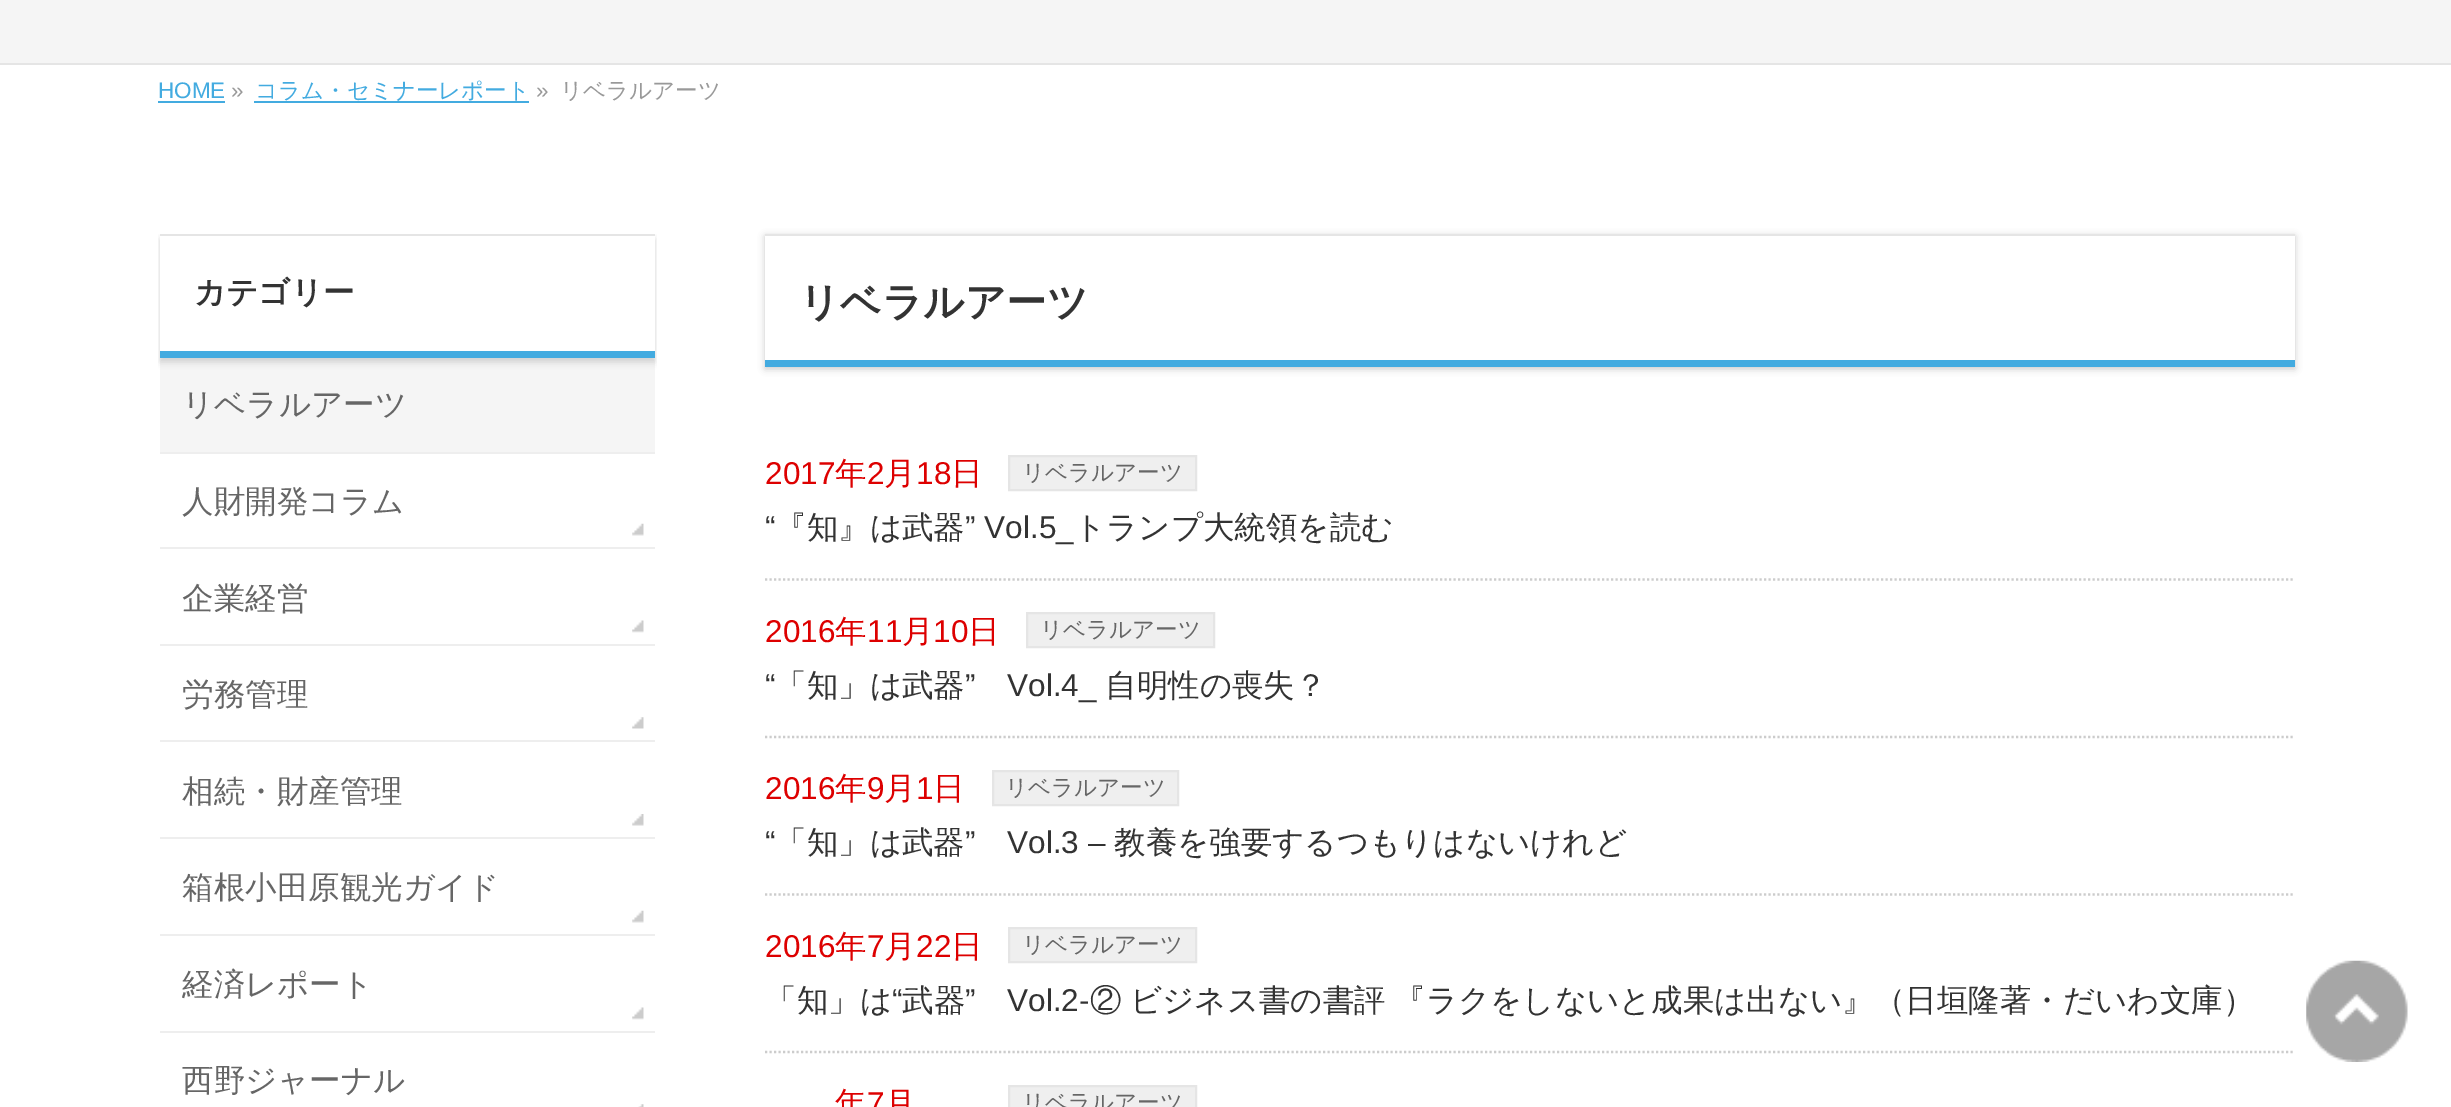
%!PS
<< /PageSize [2451 1107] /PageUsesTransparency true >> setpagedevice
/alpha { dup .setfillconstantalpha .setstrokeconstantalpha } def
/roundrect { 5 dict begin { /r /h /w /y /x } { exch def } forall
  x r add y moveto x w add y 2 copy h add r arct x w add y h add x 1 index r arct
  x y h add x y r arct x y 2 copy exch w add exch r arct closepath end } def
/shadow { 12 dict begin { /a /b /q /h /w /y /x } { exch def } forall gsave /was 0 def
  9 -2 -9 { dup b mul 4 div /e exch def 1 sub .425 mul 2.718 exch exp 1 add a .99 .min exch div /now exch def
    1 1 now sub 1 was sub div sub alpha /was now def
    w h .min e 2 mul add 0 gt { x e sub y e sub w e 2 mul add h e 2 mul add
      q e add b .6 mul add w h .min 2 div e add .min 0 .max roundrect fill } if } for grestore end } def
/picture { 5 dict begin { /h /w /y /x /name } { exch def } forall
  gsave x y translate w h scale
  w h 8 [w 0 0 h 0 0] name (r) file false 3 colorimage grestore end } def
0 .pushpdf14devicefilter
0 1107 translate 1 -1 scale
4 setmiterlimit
1 setgray
0 0 2451 1107 rectfill
0.961 setgray
0 0 2451 63 rectfill
0.898 setgray
0 63 2451 2 rectfill
/LiberationSans-Regular [22.5 0 0 -22.5 0 0] selectfont
0.263 0.671 0.878 setrgbcolor
158 98 moveto (HOME) show
158 101 67 2 rectfill
0.6 setgray
231 98 moveto (») show
/WenQuanYiZenHei-Medium [22.5 0 0 -22.5 0 0] selectfont
0.263 0.671 0.878 setrgbcolor
255 98 moveto (コラム・セミナーレポート) show
254 101 275 2 rectfill
/LiberationSans-Regular [22.5 0 0 -22.5 0 0] selectfont
0.6 setgray
536 98 moveto (») show
/WenQuanYiZenHei-Medium [22.5 0 0 -22.5 0 0] selectfont
560 98 moveto (リベラルアーツ) show
0.961 setgray
160 358 495 94 rectfill
gsave
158 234 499 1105 rectclip
newpath 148 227 moveto 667 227 lineto 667 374 lineto 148 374 lineto closepath 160 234 moveto 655 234 lineto 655 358 lineto 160 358 lineto closepath eoclip newpath
0 setgray
160 239 495 123 0 3.5 0.15 shadow
grestore
0.898 setgray
160 234 495 2 rectfill
0.263 0.671 0.878 setrgbcolor
160 351 495 7 rectfill
/WenQuanYiZenHei-Bold [31.5 0 0 -31.5 0 0] selectfont
0.2 setgray
194 303 moveto (カテゴリー) show
0.933 setgray
160 452 495 2 rectfill
/WenQuanYiZenHei-Medium [31.5 0 0 -31.5 0 0] selectfont
0.4 setgray
182 415 moveto (リベラルアーツ) show
0.933 setgray
160 547 495 2 rectfill
(img1.rgb) 632 523 12 13 picture
0.4 setgray
182 512 moveto (人財開発コラム) show
0.933 setgray
160 644 495 2 rectfill
(img2.rgb) 632 620 12 13 picture
0.4 setgray
182 609 moveto (企業経営) show
0.933 setgray
160 740 495 2 rectfill
(img3.rgb) 632 717 12 12 picture
0.4 setgray
182 705 moveto (労務管理) show
0.933 setgray
160 837 495 2 rectfill
(img4.rgb) 632 814 12 12 picture
0.4 setgray
182 802 moveto (相続・財産管理) show
0.933 setgray
160 934 495 2 rectfill
(img1.rgb) 632 910 12 13 picture
0.4 setgray
182 898 moveto (箱根小田原観光ガイド) show
0.933 setgray
160 1031 495 2 rectfill
(img2.rgb) 632 1007 12 13 picture
0.4 setgray
182 995 moveto (経済レポート) show
(img5.rgb) 638 1104 6 3 picture
182 1091 moveto (西野ジャーナル) show
gsave
newpath 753 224 moveto 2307 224 lineto 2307 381 lineto 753 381 lineto closepath 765 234 moveto 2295 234 lineto 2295 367 lineto 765 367 lineto closepath eoclip newpath
0 setgray
765 236 1530 133 0 3.5 0.2 shadow
grestore
0.898 setgray
765 234 1530 2 rectfill
0.263 0.671 0.878 setrgbcolor
765 360 1530 7 rectfill
/WenQuanYiZenHei-Bold [40.5 0 0 -40.5 0 0] selectfont
0.2 setgray
799 316 moveto (リベラルアーツ) show
0.8 setgray
2.2 setlinewidth
[2.25 2.25] 0 setdash
newpath 765 579.5 moveto 2295 579.5 lineto stroke
/LiberationSans-Regular [31.5 0 0 -31.5 0 0] selectfont
0.867 0 0 setrgbcolor
765 484 moveto (2017) show
/WenQuanYiZenHei-Medium [31.5 0 0 -31.5 0 0] selectfont
835 484 moveto (年) show
/LiberationSans-Regular [31.5 0 0 -31.5 0 0] selectfont
867 484 moveto (2) show
/WenQuanYiZenHei-Medium [31.5 0 0 -31.5 0 0] selectfont
884 484 moveto (月) show
/LiberationSans-Regular [31.5 0 0 -31.5 0 0] selectfont
916 484 moveto (18) show
/WenQuanYiZenHei-Medium [31.5 0 0 -31.5 0 0] selectfont
951 484 moveto (日) show
0.937 setgray
newpath 1009 456 moveto 1196 456 lineto 1196 490 lineto 1009 490 lineto closepath gsave fill grestore
0.898 setgray
2 setlinewidth
[] 0 setdash
stroke
/WenQuanYiZenHei-Medium [22.5 0 0 -22.5 0 0] selectfont
0.4 setgray
1022 480 moveto (リベラルアーツ) show
/LiberationSans-Regular [31.5 0 0 -31.5 0 0] selectfont
0.2 setgray
765 538 moveto (“) show
/WenQuanYiZenHei-Medium [31.5 0 0 -31.5 0 0] selectfont
775 538 moveto (『知』は武器) show
/LiberationSans-Regular [31.5 0 0 -31.5 0 0] selectfont
965 538 moveto (” Vol.5_) show
/WenQuanYiZenHei-Medium [31.5 0 0 -31.5 0 0] selectfont
1074 538 moveto (トランプ大統領を読む) show
0.8 setgray
2.2 setlinewidth
[2.25 2.25] 0 setdash
newpath 765 737 moveto 2295 737 lineto stroke
/LiberationSans-Regular [31.5 0 0 -31.5 0 0] selectfont
0.867 0 0 setrgbcolor
765 642 moveto (2016) show
/WenQuanYiZenHei-Medium [31.5 0 0 -31.5 0 0] selectfont
835 642 moveto (年) show
/LiberationSans-Regular [31.5 0 0 -31.5 0 0] selectfont
867 642 moveto (11) show
/WenQuanYiZenHei-Medium [31.5 0 0 -31.5 0 0] selectfont
902 642 moveto (月) show
/LiberationSans-Regular [31.5 0 0 -31.5 0 0] selectfont
933 642 moveto (10) show
/WenQuanYiZenHei-Medium [31.5 0 0 -31.5 0 0] selectfont
968 642 moveto (日) show
0.937 setgray
newpath 1027 613 moveto 1214 613 lineto 1214 647 lineto 1027 647 lineto closepath gsave fill grestore
0.898 setgray
2 setlinewidth
[] 0 setdash
stroke
/WenQuanYiZenHei-Medium [22.5 0 0 -22.5 0 0] selectfont
0.4 setgray
1040 637 moveto (リベラルアーツ) show
/LiberationSans-Regular [31.5 0 0 -31.5 0 0] selectfont
0.2 setgray
765 696 moveto (“) show
/WenQuanYiZenHei-Medium [31.5 0 0 -31.5 0 0] selectfont
775 696 moveto (「知」は武器) show
/LiberationSans-Regular [31.5 0 0 -31.5 0 0] selectfont
965 696 moveto (”) show
1007 696 moveto (Vol.4_) show
/WenQuanYiZenHei-Medium [31.5 0 0 -31.5 0 0] selectfont
1105 696 moveto (自明性の喪失？) show
0.8 setgray
2.2 setlinewidth
[2.25 2.25] 0 setdash
newpath 765 894.5 moveto 2295 894.5 lineto stroke
/LiberationSans-Regular [31.5 0 0 -31.5 0 0] selectfont
0.867 0 0 setrgbcolor
765 799 moveto (2016) show
/WenQuanYiZenHei-Medium [31.5 0 0 -31.5 0 0] selectfont
835 799 moveto (年) show
/LiberationSans-Regular [31.5 0 0 -31.5 0 0] selectfont
867 799 moveto (9) show
/WenQuanYiZenHei-Medium [31.5 0 0 -31.5 0 0] selectfont
884 799 moveto (月) show
/LiberationSans-Regular [31.5 0 0 -31.5 0 0] selectfont
916 799 moveto (1) show
/WenQuanYiZenHei-Medium [31.5 0 0 -31.5 0 0] selectfont
933 799 moveto (日) show
0.937 setgray
newpath 993 771 moveto 1178 771 lineto 1178 805 lineto 993 805 lineto closepath gsave fill grestore
0.898 setgray
2 setlinewidth
[] 0 setdash
stroke
/WenQuanYiZenHei-Medium [22.5 0 0 -22.5 0 0] selectfont
0.4 setgray
1005 795 moveto (リベラルアーツ) show
/LiberationSans-Regular [31.5 0 0 -31.5 0 0] selectfont
0.2 setgray
765 853 moveto (“) show
/WenQuanYiZenHei-Medium [31.5 0 0 -31.5 0 0] selectfont
775 853 moveto (「知」は武器) show
/LiberationSans-Regular [31.5 0 0 -31.5 0 0] selectfont
965 853 moveto (”) show
1007 853 moveto (Vol.3 –) show
/WenQuanYiZenHei-Medium [31.5 0 0 -31.5 0 0] selectfont
1114 853 moveto (教養を強要するつもりはないけれど) show
0.8 setgray
2.2 setlinewidth
[2.25 2.25] 0 setdash
newpath 765 1052 moveto 2295 1052 lineto stroke
/LiberationSans-Regular [31.5 0 0 -31.5 0 0] selectfont
0.867 0 0 setrgbcolor
765 957 moveto (2016) show
/WenQuanYiZenHei-Medium [31.5 0 0 -31.5 0 0] selectfont
835 957 moveto (年) show
/LiberationSans-Regular [31.5 0 0 -31.5 0 0] selectfont
867 957 moveto (7) show
/WenQuanYiZenHei-Medium [31.5 0 0 -31.5 0 0] selectfont
884 957 moveto (月) show
/LiberationSans-Regular [31.5 0 0 -31.5 0 0] selectfont
916 957 moveto (22) show
/WenQuanYiZenHei-Medium [31.5 0 0 -31.5 0 0] selectfont
951 957 moveto (日) show
0.937 setgray
newpath 1009 928 moveto 1196 928 lineto 1196 962 lineto 1009 962 lineto closepath gsave fill grestore
0.898 setgray
2 setlinewidth
[] 0 setdash
stroke
/WenQuanYiZenHei-Medium [22.5 0 0 -22.5 0 0] selectfont
0.4 setgray
1022 952 moveto (リベラルアーツ) show
/WenQuanYiZenHei-Medium [31.5 0 0 -31.5 0 0] selectfont
0.2 setgray
765 1011 moveto (「知」は) show
/LiberationSans-Regular [31.5 0 0 -31.5 0 0] selectfont
892 1011 moveto (“) show
/WenQuanYiZenHei-Medium [31.5 0 0 -31.5 0 0] selectfont
902 1011 moveto (武器) show
/LiberationSans-Regular [31.5 0 0 -31.5 0 0] selectfont
965 1011 moveto (”) show
1007 1011 moveto (Vol.2-) show
/WenQuanYiZenHei-Medium [31.5 0 0 -31.5 0 0] selectfont
1090 1011 moveto -1 0 32 (② ビジネス書の書評 『ラクをしないと成果は出ない』（日垣隆著・だいわ文庫）) widthshow
0.867 0 0 setrgbcolor
835 1114 moveto (年) show
/LiberationSans-Regular [31.5 0 0 -31.5 0 0] selectfont
867 1114 moveto (7) show
/WenQuanYiZenHei-Medium [31.5 0 0 -31.5 0 0] selectfont
884 1114 moveto (月) show
0.937 setgray
newpath 1009 1086 moveto 1196 1086 lineto 1196 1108 lineto 1009 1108 lineto closepath gsave fill grestore
0.898 setgray
stroke
/WenQuanYiZenHei-Medium [22.5 0 0 -22.5 0 0] selectfont
0.4 setgray
1022 1110 moveto (リベラルアーツ) show
(img6.rgb) 2306 960 102 102 picture
.poppdf14devicefilter showpage
